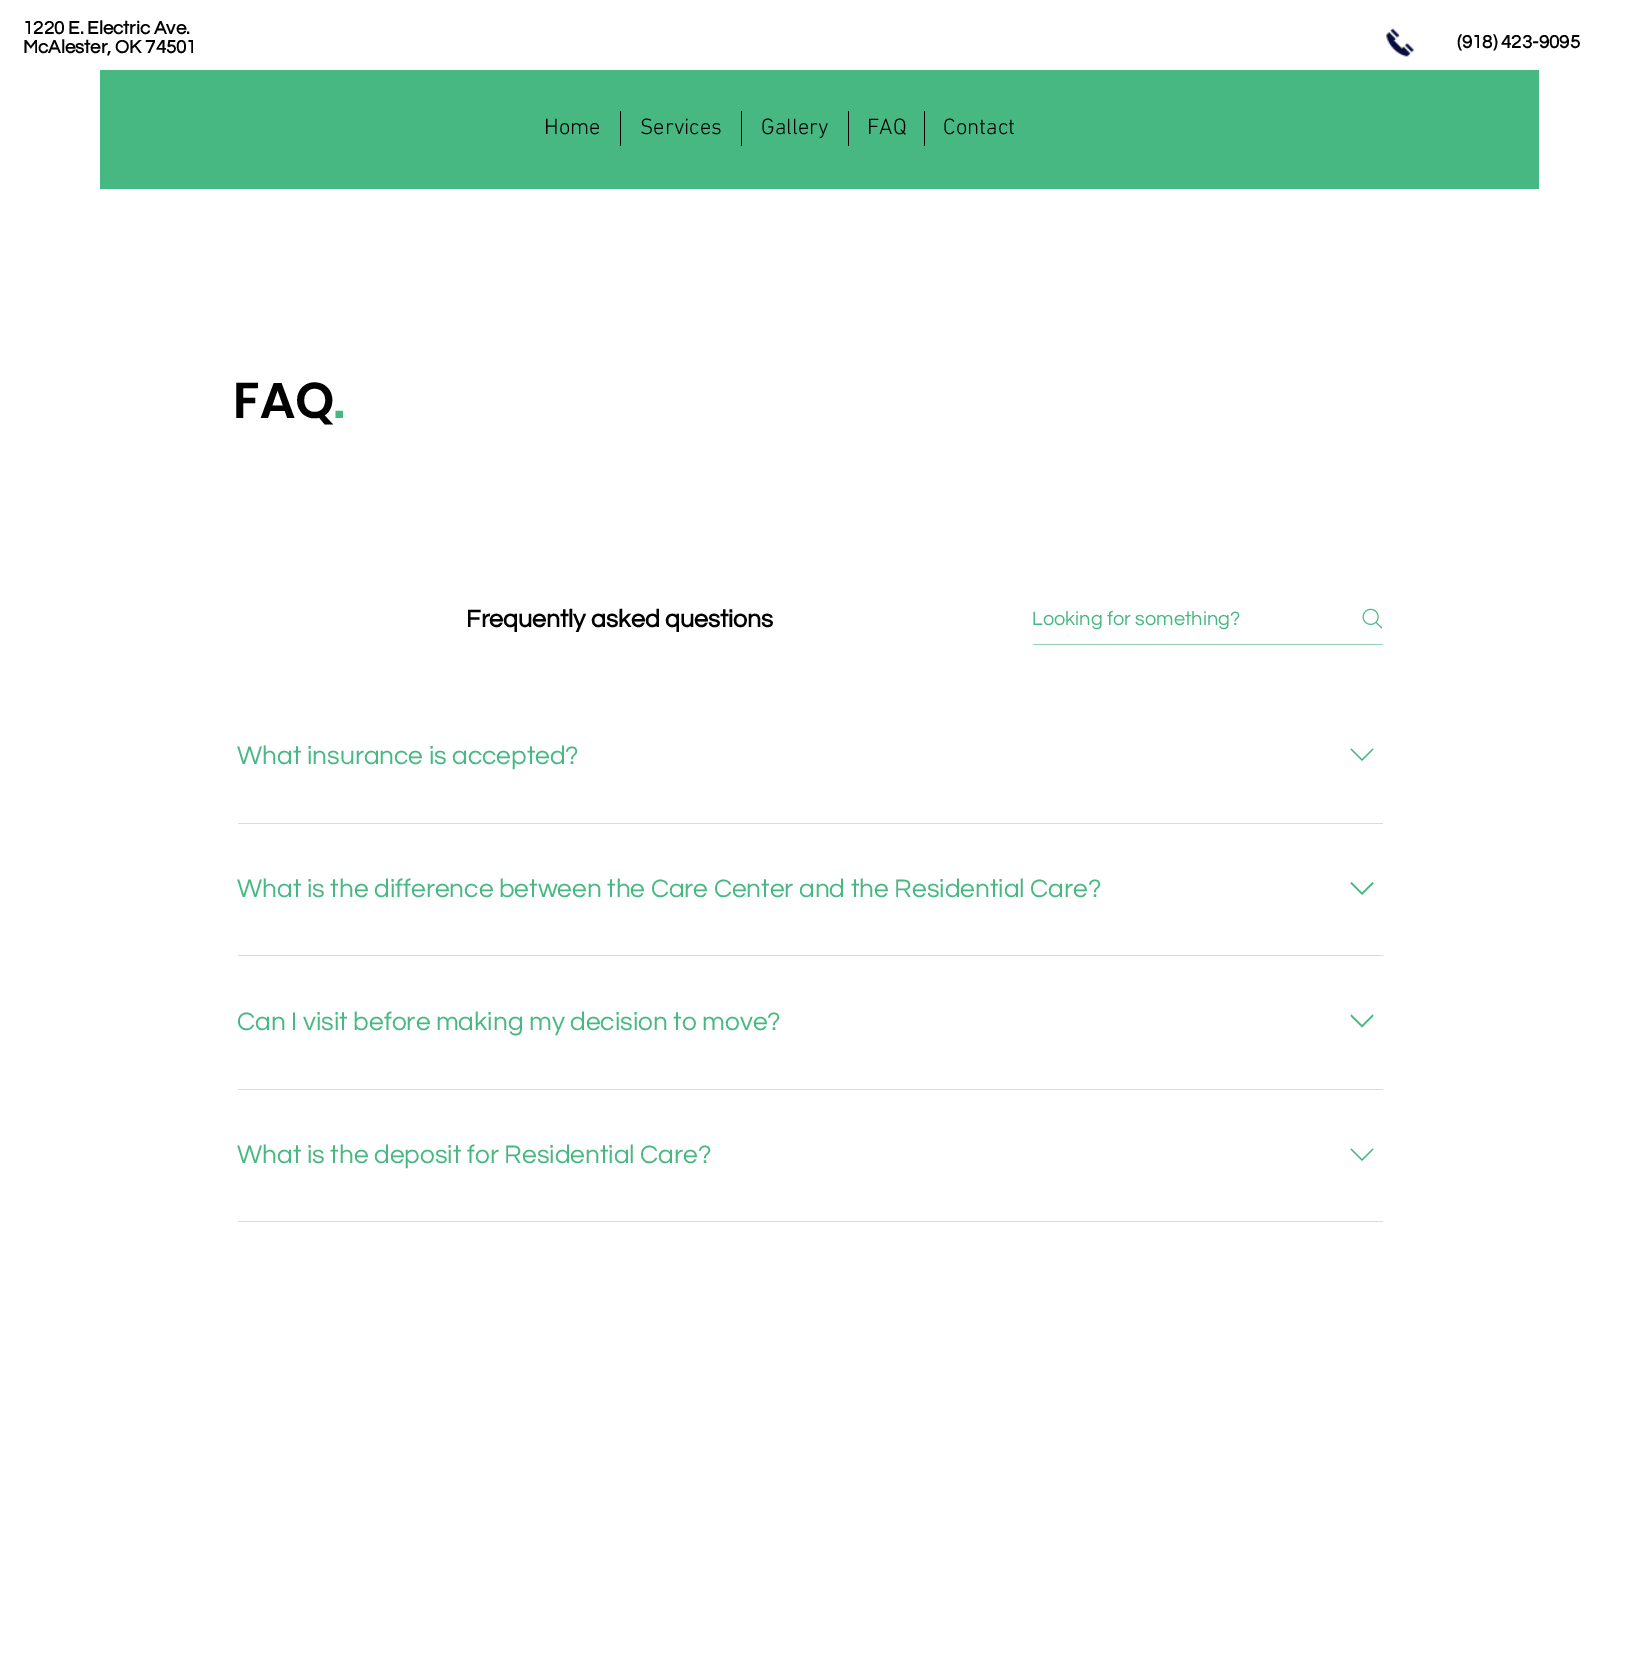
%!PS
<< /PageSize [1638 1680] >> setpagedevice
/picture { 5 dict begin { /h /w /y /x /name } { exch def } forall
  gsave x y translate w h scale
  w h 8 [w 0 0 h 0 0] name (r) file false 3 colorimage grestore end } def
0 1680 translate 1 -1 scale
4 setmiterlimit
1 setgray
0 0 1638 1680 rectfill
/Questrial-Bold [18.75 0 0 -18.75 0 0] selectfont
0 setgray
23 34 moveto (1220 E. Electric Ave.) show
23 53 moveto (McAlester, OK 74501) show
(img1.rgb) 1386 28 28 29 picture
1457 48 moveto (\(918\) 423-9095) show
0.282 0.722 0.514 setrgbcolor
100 70 1439 119 rectfill
/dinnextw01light-Light [22.5 0 0 -22.5 0 0] selectfont
0 setgray
544 134 moveto (Home) show
620 111 1 35 rectfill
640 134 moveto (Services) show
741 111 1 35 rectfill
761 134 moveto (Gallery) show
848 111 1 35 rectfill
867 134 moveto (FAQ) show
924 111 1 35 rectfill
943 134 moveto (Contact) show
/Poppins-SemiBold [50 0 0 -50 0 0] selectfont
233 418 moveto (FAQ) show
0.282 0.722 0.514 setrgbcolor
334 418 moveto (.) show
/Questrial-Bold [25 0 0 -25 0 0] selectfont
0 setgray
466 627 moveto (Frequently asked questions) show
0.569 0.831 0.71 setrgbcolor
1033 644 350 1 rectfill
gsave
1033 609 320 20 rectclip
/Questrial-Regular [20 0 0 -20 0 0] selectfont
0.282 0.722 0.514 setrgbcolor
1032 625 moveto (Looking for something?) show
grestore
(img2.rgb) 1362 608 21 21 picture
/Questrial-Regular [26.25 0 0 -26.25 0 0] selectfont
0.282 0.722 0.514 setrgbcolor
237 764 moveto (What insurance is accepted?) show
newpath 1372.5 748.5 moveto 1373.5 749.5 lineto 1362 761 lineto 1350.5 749.5 lineto 1351.5 748.5 lineto 1362 759 lineto closepath eofill
0.8 0.878 0.925 setrgbcolor
238 823 1145 1 rectfill
0.282 0.722 0.514 setrgbcolor
237 897 moveto (What is the difference between the Care Center and the Residential Care?) show
newpath 1372.5 882 moveto 1373.5 883.5 lineto 1362 895 lineto 1350.5 883.5 lineto 1351.5 882 lineto 1362 892.5 lineto closepath eofill
0.8 0.878 0.925 setrgbcolor
238 955 1145 1 rectfill
0.282 0.722 0.514 setrgbcolor
237 1030 moveto (Can I visit before making my decision to move?) show
newpath 1372.5 1014.5 moveto 1373.5 1016 lineto 1362 1027.5 lineto 1350.5 1016 lineto 1351.5 1014.5 lineto 1362 1025 lineto closepath eofill
0.8 0.878 0.925 setrgbcolor
238 1089 1145 1 rectfill
0.282 0.722 0.514 setrgbcolor
237 1163 moveto (What is the deposit for Residential Care?) show
newpath 1372.5 1148.5 moveto 1373.5 1149.5 lineto 1362 1161 lineto 1350.5 1149.5 lineto 1351.5 1148.5 lineto 1362 1159 lineto closepath eofill
0.8 0.878 0.925 setrgbcolor
238 1221 1145 1 rectfill
showpage
